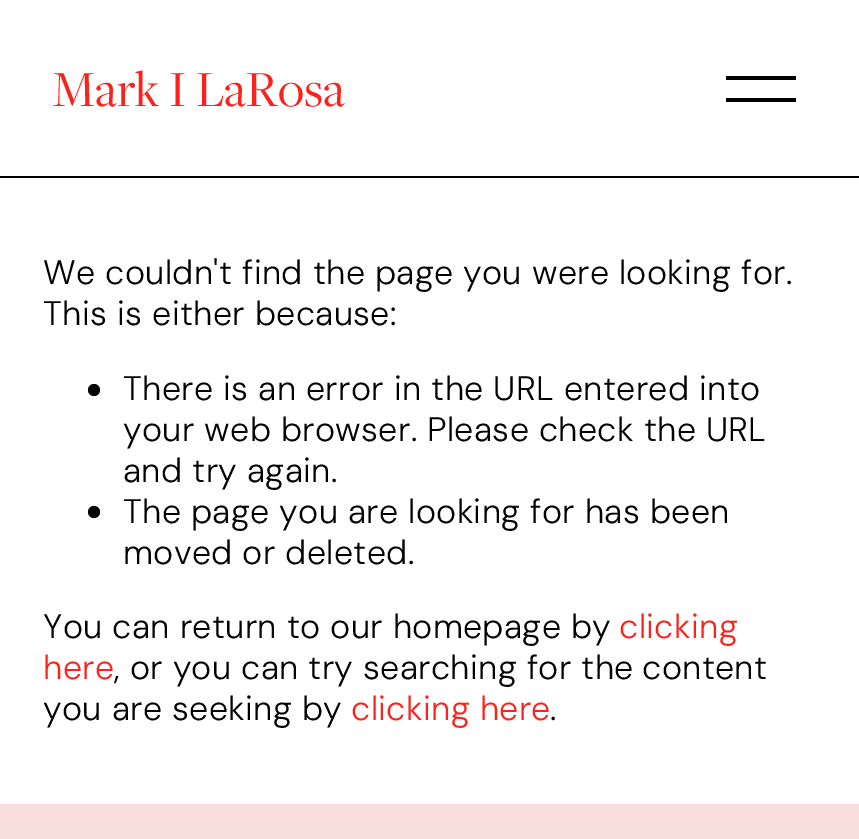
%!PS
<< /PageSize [859 839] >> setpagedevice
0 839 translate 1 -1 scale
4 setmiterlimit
1 setgray
0 0 859 839 rectfill
/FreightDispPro-Regular [52.5 0 0 -52.5 0 0] selectfont
0.988 0.133 0.11 setrgbcolor
52 106 moveto (Mark I LaRosa) show
0 setgray
726 76 70 4 rectfill
726 98 70 4 rectfill
0 176 859 2 rectfill
/DMSans-Light [34.1 0 0 -34.1 0 0] selectfont
43 284 moveto 0.35 0 (We couldn't find the page you were looking for.) ashow
43 325 moveto 0.35 0 (This is either because:) ashow
newpath 94 390 6 0 360 arc closepath fill
123 400 moveto 0.35 0 (There is an error in the URL entered into) ashow
123 441 moveto 0.35 0 (your web browser. Please check the URL) ashow
123 482 moveto 0.35 0 (and try again.) ashow
newpath 94 512 6 0 360 arc closepath fill
123 523 moveto 0.35 0 (The page you are looking for has been) ashow
123 564 moveto 0.35 0 (moved or deleted.) ashow
43 638 moveto 0.35 0 (You can return to our homepage by) ashow
0.988 0.133 0.11 setrgbcolor
619 638 moveto 0.35 0 (clicking) ashow
43 679 moveto 0.35 0 (here) ashow
0 setgray
114 679 moveto 0.35 0 (, or you can try searching for the) ashow
642 679 moveto 0.35 0 (content) ashow
43 720 moveto 0.35 0 (you are seeking by) ashow
0.988 0.133 0.11 setrgbcolor
351 720 moveto 0.35 0 (clicking here) ashow
0 setgray
550 720 moveto 0.35 0 (.) ashow
0.973 0.875 0.859 setrgbcolor
0 804 859 35 rectfill
showpage
